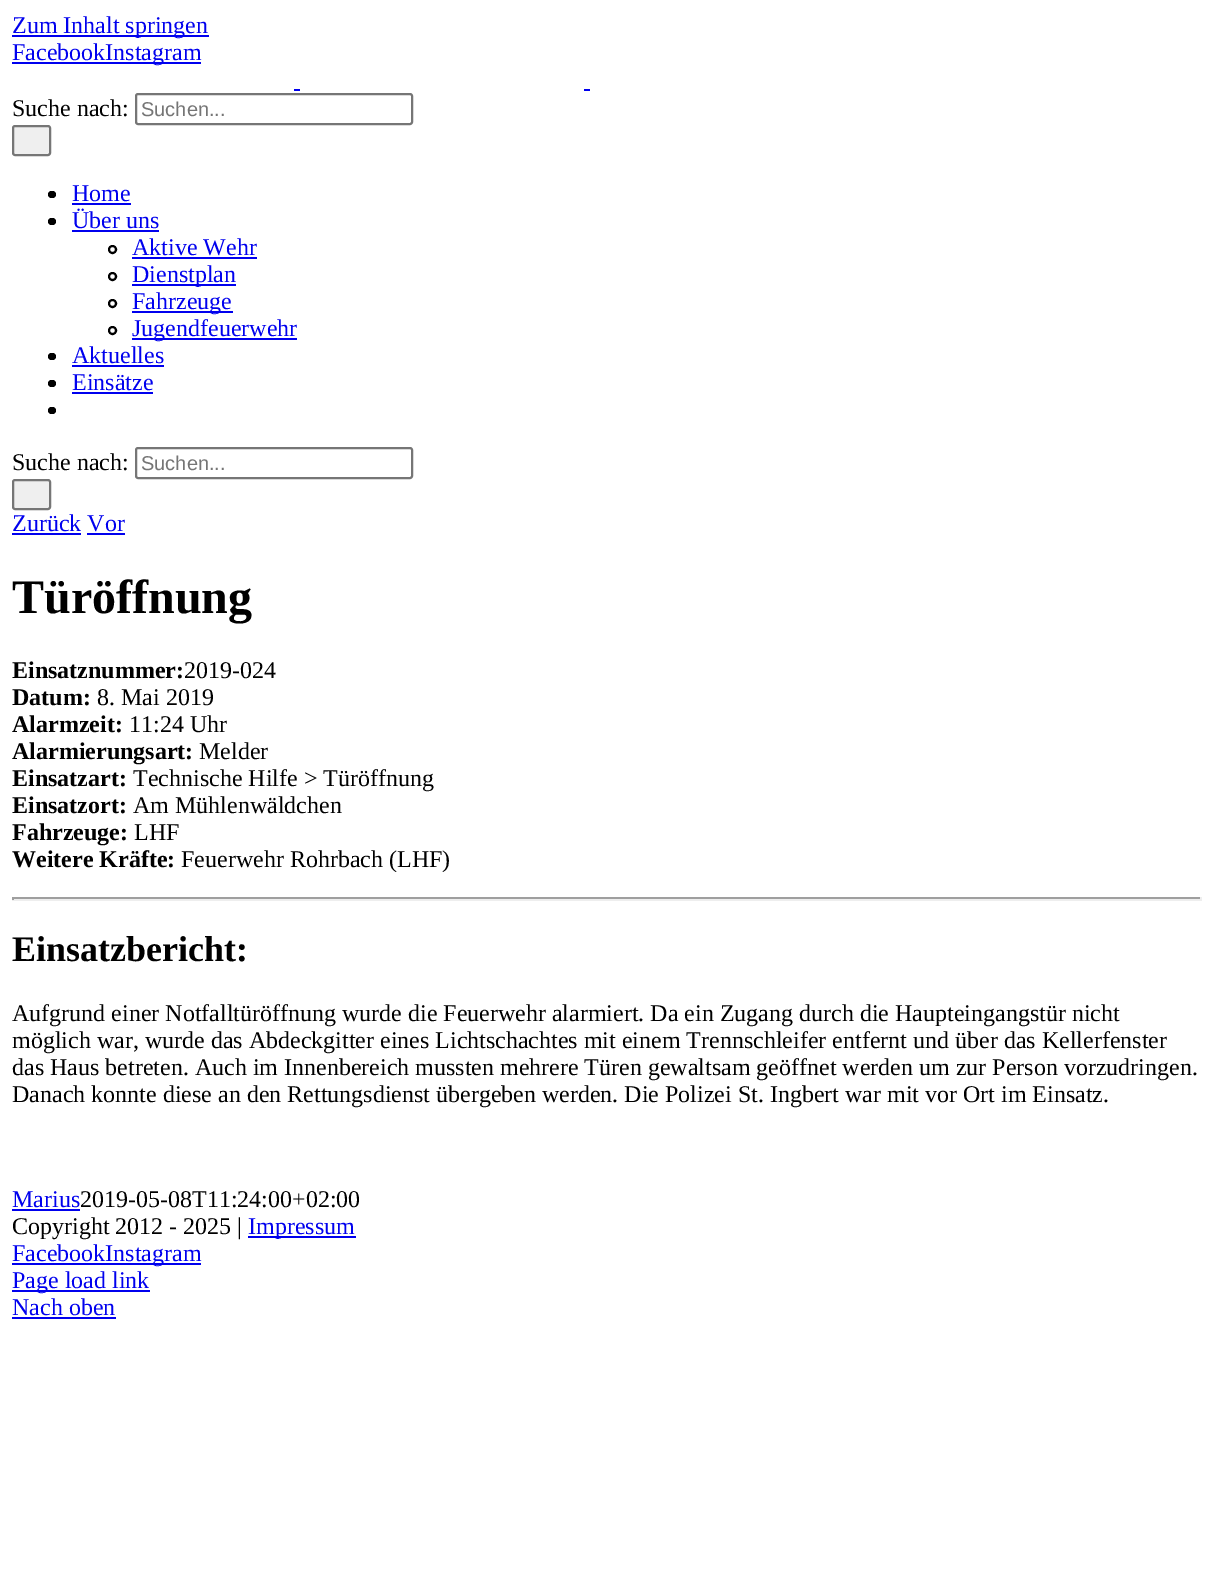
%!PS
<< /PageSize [1213 1588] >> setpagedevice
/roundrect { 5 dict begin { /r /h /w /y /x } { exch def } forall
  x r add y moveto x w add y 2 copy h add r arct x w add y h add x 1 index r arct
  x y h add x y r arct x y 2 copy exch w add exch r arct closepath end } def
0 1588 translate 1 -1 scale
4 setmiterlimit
1 setgray
0 0 1213 1588 rectfill
0 0 0.933 setrgbcolor
12 35 197 2 rectfill
/LiberationSerif-Regular [24 0 0 -24 0 0] selectfont
12 33 moveto (Zum Inhalt springen) show
12 62 189 2 rectfill
12 60 moveto (FacebookInstagram) show
294 89 6 2 rectfill
584 89 6 2 rectfill
0 setgray
12 116 moveto (Suche nach:) show
0.463 setgray
2 setlinewidth
136 94 276 30 2 roundrect stroke
/LiberationSans-Regular [20 0 0 -20 0 0] selectfont
0.459 setgray
141 116 moveto (Suchen...) show
0.937 setgray
13 126 37 29 2 roundrect gsave fill grestore
0.463 setgray
stroke
0 setgray
48 191 8 7 3.5 roundrect fill
/LiberationSerif-Regular [24 0 0 -24 0 0] selectfont
0 0 0.933 setrgbcolor
72 201 moveto (Home) show
72 203 59 2 rectfill
0 setgray
48 218 8 7 3.5 roundrect fill
0 0 0.933 setrgbcolor
72 228 moveto (Über uns) show
72 230 87 2 rectfill
0 setgray
newpath 112.5 249.5 3.5 0 360 arc closepath stroke
0 0 0.933 setrgbcolor
132 255 moveto (Aktive Wehr) show
132 257 125 2 rectfill
0 setgray
newpath 112.5 276.5 3.5 0 360 arc closepath stroke
0 0 0.933 setrgbcolor
132 284 104 2 rectfill
132 282 moveto (Dienstplan) show
0 setgray
newpath 112.5 303.5 3.5 0 360 arc closepath stroke
0 0 0.933 setrgbcolor
132 311 101 2 rectfill
132 309 moveto (Fahrzeuge) show
0 setgray
newpath 112.5 330.5 3.5 0 360 arc closepath stroke
0 0 0.933 setrgbcolor
132 338 165 2 rectfill
132 336 moveto (Jugendfeuerwehr) show
0 setgray
48 353 8 7 3.5 roundrect fill
0 0 0.933 setrgbcolor
72 363 moveto (Aktuelles) show
72 365 92 2 rectfill
0 setgray
48 380 8 7 3.5 roundrect fill
0 0 0.933 setrgbcolor
72 390 moveto (Einsätze) show
72 392 81 2 rectfill
0 setgray
48 407 8 7 3.5 roundrect fill
12 470 moveto (Suche nach:) show
0.463 setgray
136 448 276 30 2 roundrect stroke
/LiberationSans-Regular [20 0 0 -20 0 0] selectfont
0.459 setgray
141 470 moveto (Suchen...) show
0.937 setgray
13 480 37 29 2 roundrect gsave fill grestore
0.463 setgray
stroke
/LiberationSerif-Regular [24 0 0 -24 0 0] selectfont
0 0 0.933 setrgbcolor
12 531 moveto (Zurück Vor) show
12 533 69 2 rectfill
87 533 38 2 rectfill
/LiberationSerif-Bold [48 0 0 -48 0 0] selectfont
0 setgray
12 613 moveto (Türöffnung) show
/LiberationSerif-Bold [24 0 0 -24 0 0] selectfont
12 678 moveto (Einsatznummer:) show
/LiberationSerif-Regular [24 0 0 -24 0 0] selectfont
184 678 moveto (2019-024) show
/LiberationSerif-Bold [24 0 0 -24 0 0] selectfont
12 705 moveto (Datum:) show
/LiberationSerif-Regular [24 0 0 -24 0 0] selectfont
97 705 moveto (8. Mai 2019) show
/LiberationSerif-Bold [24 0 0 -24 0 0] selectfont
12 732 moveto (Alarmzeit:) show
/LiberationSerif-Regular [24 0 0 -24 0 0] selectfont
129 732 moveto (11:24 Uhr) show
/LiberationSerif-Bold [24 0 0 -24 0 0] selectfont
12 759 moveto (Alarmierungsart:) show
/LiberationSerif-Regular [24 0 0 -24 0 0] selectfont
199 759 moveto (Melder) show
/LiberationSerif-Bold [24 0 0 -24 0 0] selectfont
12 786 moveto (Einsatzart:) show
/LiberationSerif-Regular [24 0 0 -24 0 0] selectfont
133 786 moveto (Technische Hilfe > Türöffnung) show
/LiberationSerif-Bold [24 0 0 -24 0 0] selectfont
12 813 moveto (Einsatzort:) show
/LiberationSerif-Regular [24 0 0 -24 0 0] selectfont
133 813 moveto (Am Mühlenwäldchen) show
/LiberationSerif-Bold [24 0 0 -24 0 0] selectfont
12 840 moveto (Fahrzeuge:) show
/LiberationSerif-Regular [24 0 0 -24 0 0] selectfont
134 840 moveto (LHF) show
/LiberationSerif-Bold [24 0 0 -24 0 0] selectfont
12 867 moveto (Weitere Kräfte:) show
/LiberationSerif-Regular [24 0 0 -24 0 0] selectfont
181 867 moveto (Feuerwehr Rohrbach \(LHF\)) show
0.624 setgray
12 897 1190 2 rectfill
0.933 setgray
1200 897 2 3 rectfill
12 899 1190 2 rectfill
0.624 setgray
12 897 2 3 rectfill
/LiberationSerif-Bold [36 0 0 -36 0 0] selectfont
0 setgray
12 961 moveto (Einsatzbericht:) show
/LiberationSerif-Regular [24 0 0 -24 0 0] selectfont
12 1021 moveto (Aufgrund einer Notfalltüröffnung wurde die Feuerwehr alarmiert. Da ein Zugang durch die Haupteingangstür nicht) show
12 1048 moveto (möglich war, wurde das Abdeckgitter eines Lichtschachtes mit einem Trennschleifer entfernt und über das Kellerfenster) show
12 1075 moveto (das Haus betreten. Auch im Innenbereich mussten mehrere Türen gewaltsam geöffnet werden um zur Person vorzudringen.) show
12 1102 moveto (Danach konnte diese an den Rettungsdienst übergeben werden. Die Polizei St. Ingbert war mit vor Ort im Einsatz.) show
0 0 0.933 setrgbcolor
12 1207 moveto (Marius) show
12 1209 68 2 rectfill
0 setgray
80 1207 moveto (2019-05-08T11:24:00+02:00) show
12 1234 moveto (Copyright 2012 - 2025 |) show
0 0 0.933 setrgbcolor
248 1236 108 2 rectfill
248 1234 moveto (Impressum) show
12 1263 189 2 rectfill
12 1261 moveto (FacebookInstagram) show
12 1290 138 2 rectfill
12 1288 moveto (Page load link) show
12 1315 moveto (Nach oben) show
12 1317 104 2 rectfill
showpage
